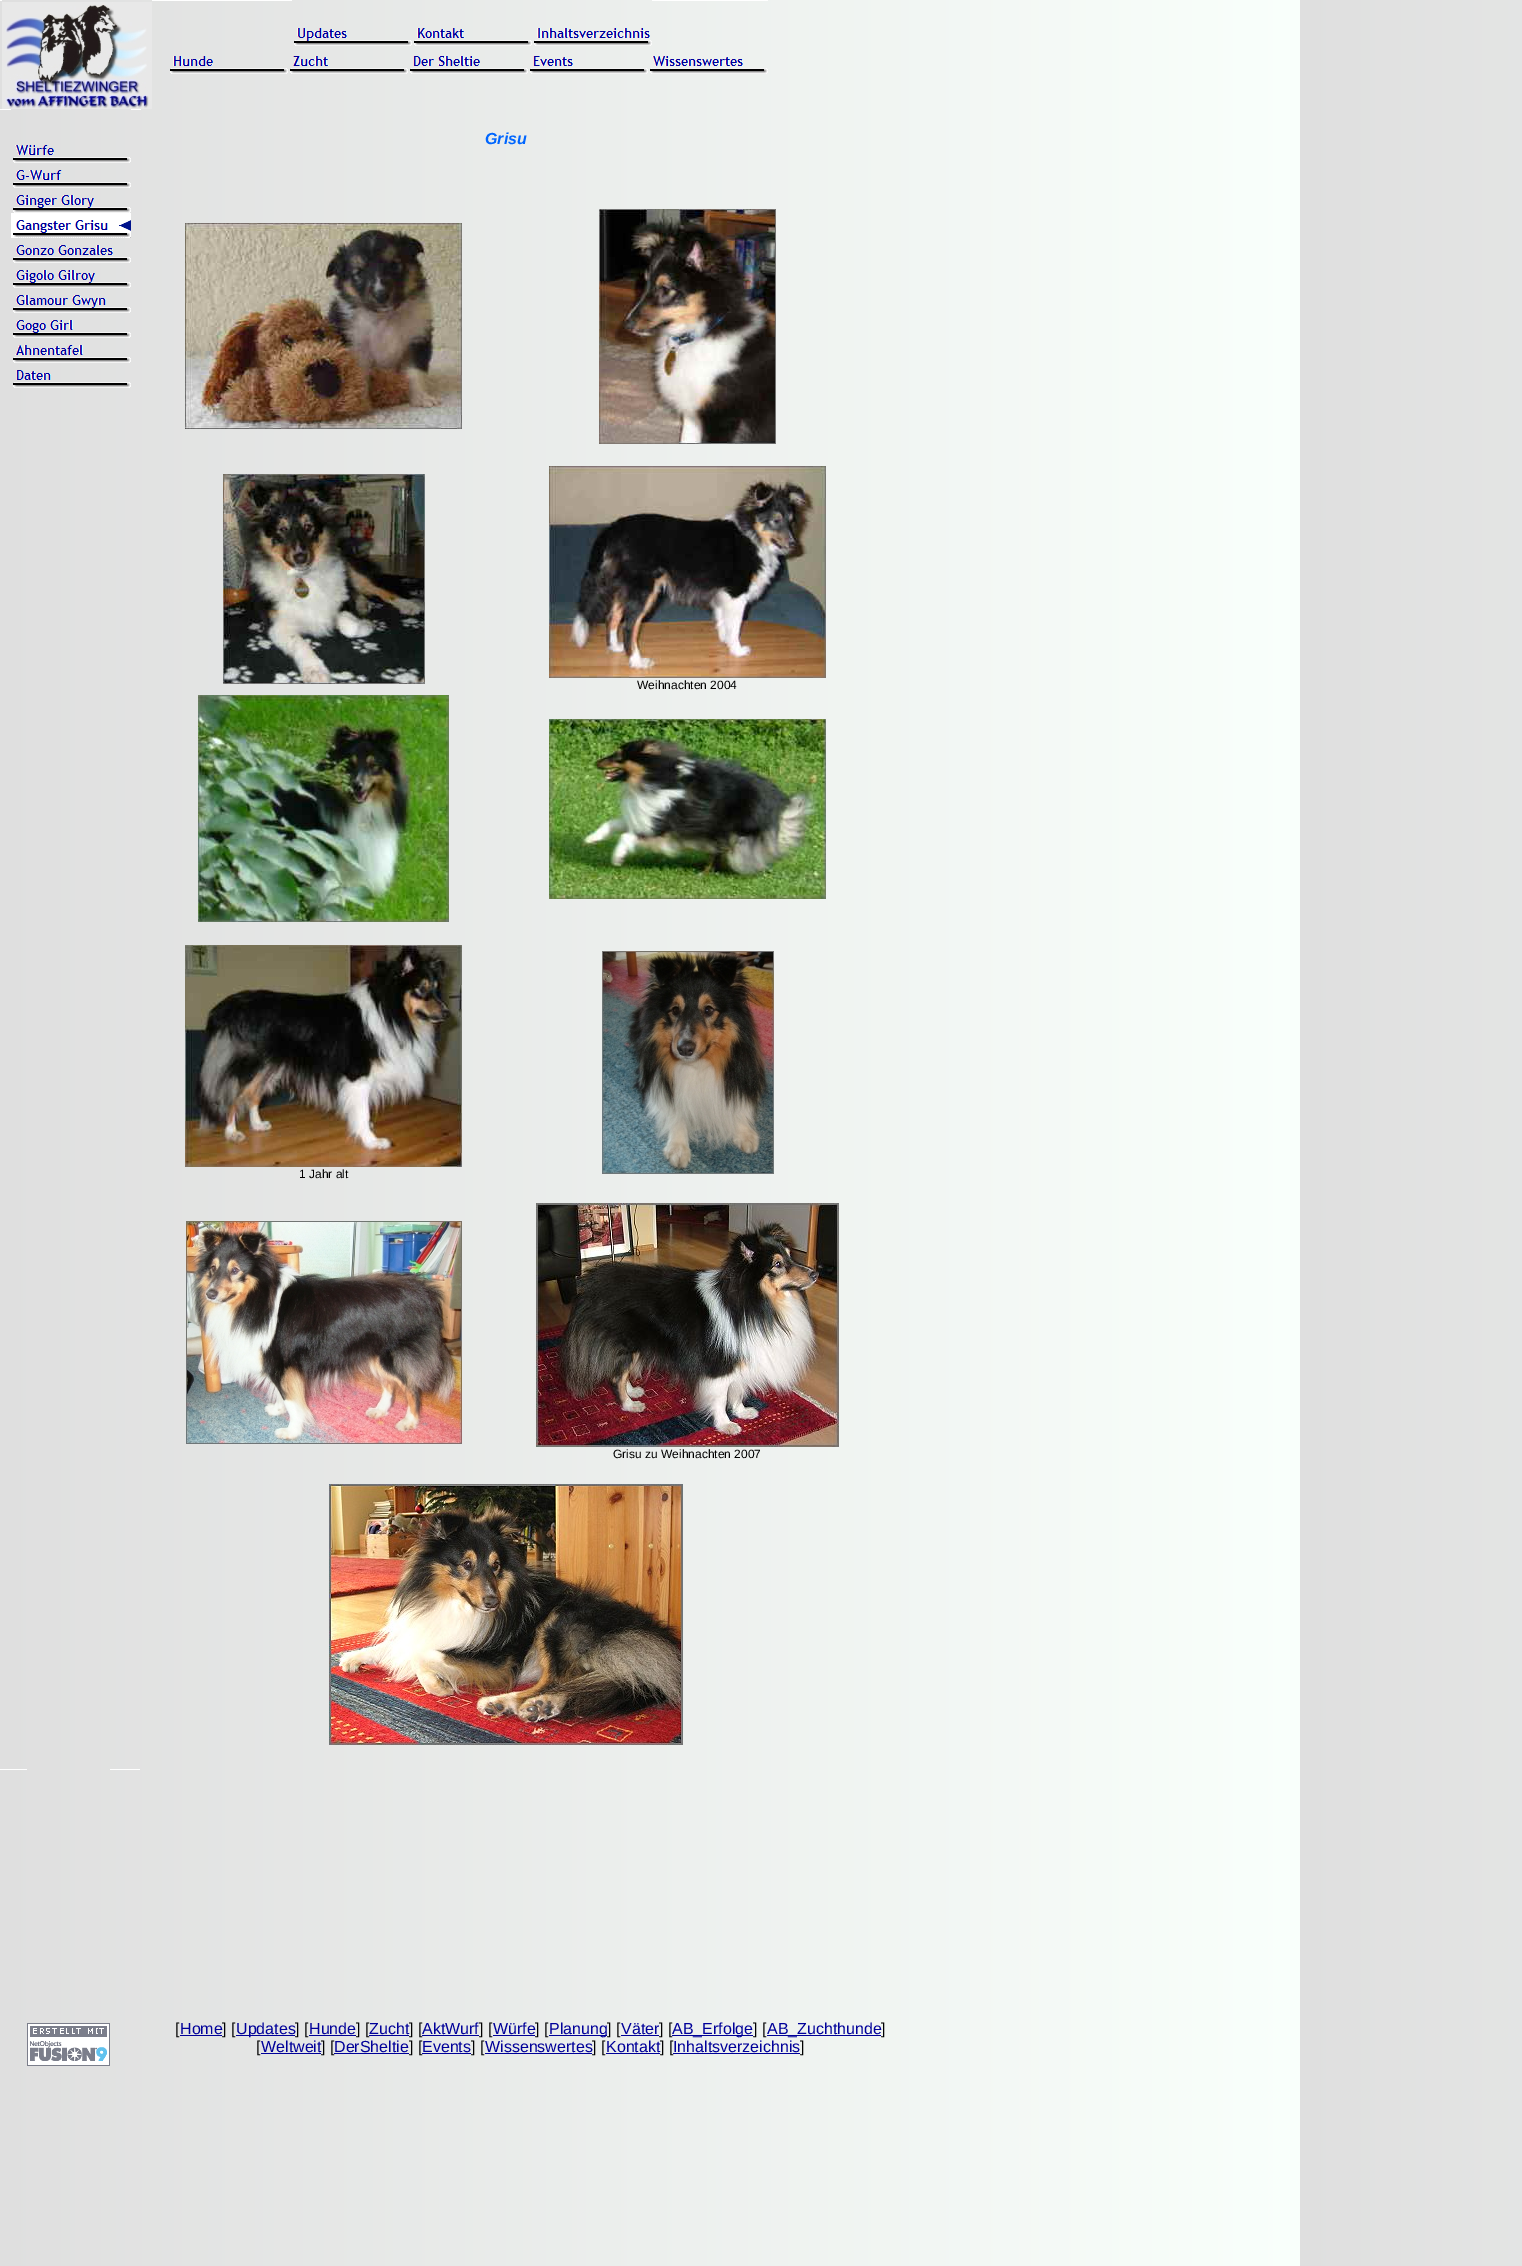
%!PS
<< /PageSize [1522 2266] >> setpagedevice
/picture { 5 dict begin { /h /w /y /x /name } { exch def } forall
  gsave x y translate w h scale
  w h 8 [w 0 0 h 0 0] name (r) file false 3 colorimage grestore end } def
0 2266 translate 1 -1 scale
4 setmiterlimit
1 setgray
0 0 1522 2266 rectfill
(img1.rgb) 0 0 1522 2266 picture
0 0 2 1 rectfill
152 0 140 1 rectfill
652 0 116 1 rectfill
(img2.rgb) 2 2 150 107 picture
(img3.rgb) 294 28 118 18 picture
(img4.rgb) 414 28 118 18 picture
(img5.rgb) 534 28 118 18 picture
(img6.rgb) 170 56 118 18 picture
(img7.rgb) 290 56 118 18 picture
(img8.rgb) 410 56 118 18 picture
(img9.rgb) 530 56 118 18 picture
(img10.rgb) 650 56 118 18 picture
0 109 11 1 rectfill
(img11.rgb) 13 145 118 18 picture
(img12.rgb) 13 170 118 18 picture
(img13.rgb) 13 195 118 18 picture
(img14.rgb) 11 213 120 25 picture
(img15.rgb) 13 245 118 18 picture
(img16.rgb) 13 270 118 18 picture
(img17.rgb) 13 295 118 18 picture
(img18.rgb) 13 320 118 18 picture
(img19.rgb) 13 345 118 18 picture
(img20.rgb) 13 370 118 18 picture
131 109 10 1 rectfill
/LiberationSans-BoldItalic [16 0 0 -16 0 0] selectfont
0 0.4 1 setrgbcolor
485 144 moveto (Grisu) show
(img21.rgb) 185 223 277 206 picture
(img22.rgb) 599 209 177 235 picture
(img23.rgb) 223 474 202 210 picture
(img24.rgb) 549 466 277 212 picture
/LiberationSans-Regular [12 0 0 -12 0 0] selectfont
0 setgray
637 689 moveto (Weihnachten 2004) show
(img25.rgb) 198 695 251 227 picture
(img26.rgb) 549 719 277 180 picture
(img27.rgb) 185 945 277 222 picture
299 1178 moveto (1 Jahr alt) show
(img28.rgb) 602 951 172 223 picture
(img29.rgb) 186 1221 276 223 picture
(img30.rgb) 536 1203 303 244 picture
613 1458 moveto (Grisu zu Weihnachten 2007) show
(img31.rgb) 329 1484 354 261 picture
1 setgray
0 1769 27 1 rectfill
(img32.rgb) 27 2023 83 43 picture
110 1769 30 1 rectfill
/LiberationSans-Regular [16 0 0 -16 0 0] selectfont
0 setgray
175 2034 moveto ([) show
0 0 0.6 setrgbcolor
180 2034 moveto (Home) show
180 2035 42 1 rectfill
0 setgray
222 2034 moveto (] [) show
0 0 0.6 setrgbcolor
236 2035 59 1 rectfill
236 2034 moveto (Updates) show
0 setgray
295 2034 moveto (] [) show
0 0 0.6 setrgbcolor
309 2034 moveto (Hunde) show
309 2035 47 1 rectfill
0 setgray
356 2034 moveto (] [) show
0 0 0.6 setrgbcolor
369 2034 moveto (Zucht) show
369 2035 40 1 rectfill
0 setgray
409 2034 moveto (] [) show
0 0 0.6 setrgbcolor
422 2034 moveto (AktWurf) show
422 2035 57 1 rectfill
0 setgray
479 2034 moveto (] [) show
0 0 0.6 setrgbcolor
493 2034 moveto (Würfe) show
493 2035 42 1 rectfill
0 setgray
535 2034 moveto (] [) show
0 0 0.6 setrgbcolor
549 2035 58 1 rectfill
549 2034 moveto (Planung) show
0 setgray
607 2034 moveto (] [) show
0 0 0.6 setrgbcolor
621 2034 moveto (Väter) show
621 2035 38 1 rectfill
0 setgray
659 2034 moveto (] [) show
0 0 0.6 setrgbcolor
672 2035 81 1 rectfill
672 2034 moveto (AB_Erfolge) show
0 setgray
753 2034 moveto (] [) show
0 0 0.6 setrgbcolor
767 2035 114 1 rectfill
767 2034 moveto (AB_Zuchthunde) show
0 setgray
881 2034 moveto (]) show
256 2052 moveto ([) show
0 0 0.6 setrgbcolor
261 2052 moveto (Weltweit) show
261 2053 60 1 rectfill
0 setgray
321 2052 moveto (] [) show
0 0 0.6 setrgbcolor
334 2052 moveto (DerSheltie) show
334 2053 75 1 rectfill
0 setgray
409 2052 moveto (] [) show
0 0 0.6 setrgbcolor
422 2052 moveto (Events) show
422 2053 49 1 rectfill
0 setgray
471 2052 moveto (] [) show
0 0 0.6 setrgbcolor
485 2052 moveto (Wissenswertes) show
485 2053 107 1 rectfill
0 setgray
592 2052 moveto (] [) show
0 0 0.6 setrgbcolor
606 2052 moveto (Kontakt) show
606 2053 54 1 rectfill
0 setgray
660 2052 moveto (] [) show
0 0 0.6 setrgbcolor
673 2052 moveto (Inhaltsverzeichnis) show
673 2053 127 1 rectfill
0 setgray
800 2052 moveto (]) show
showpage
